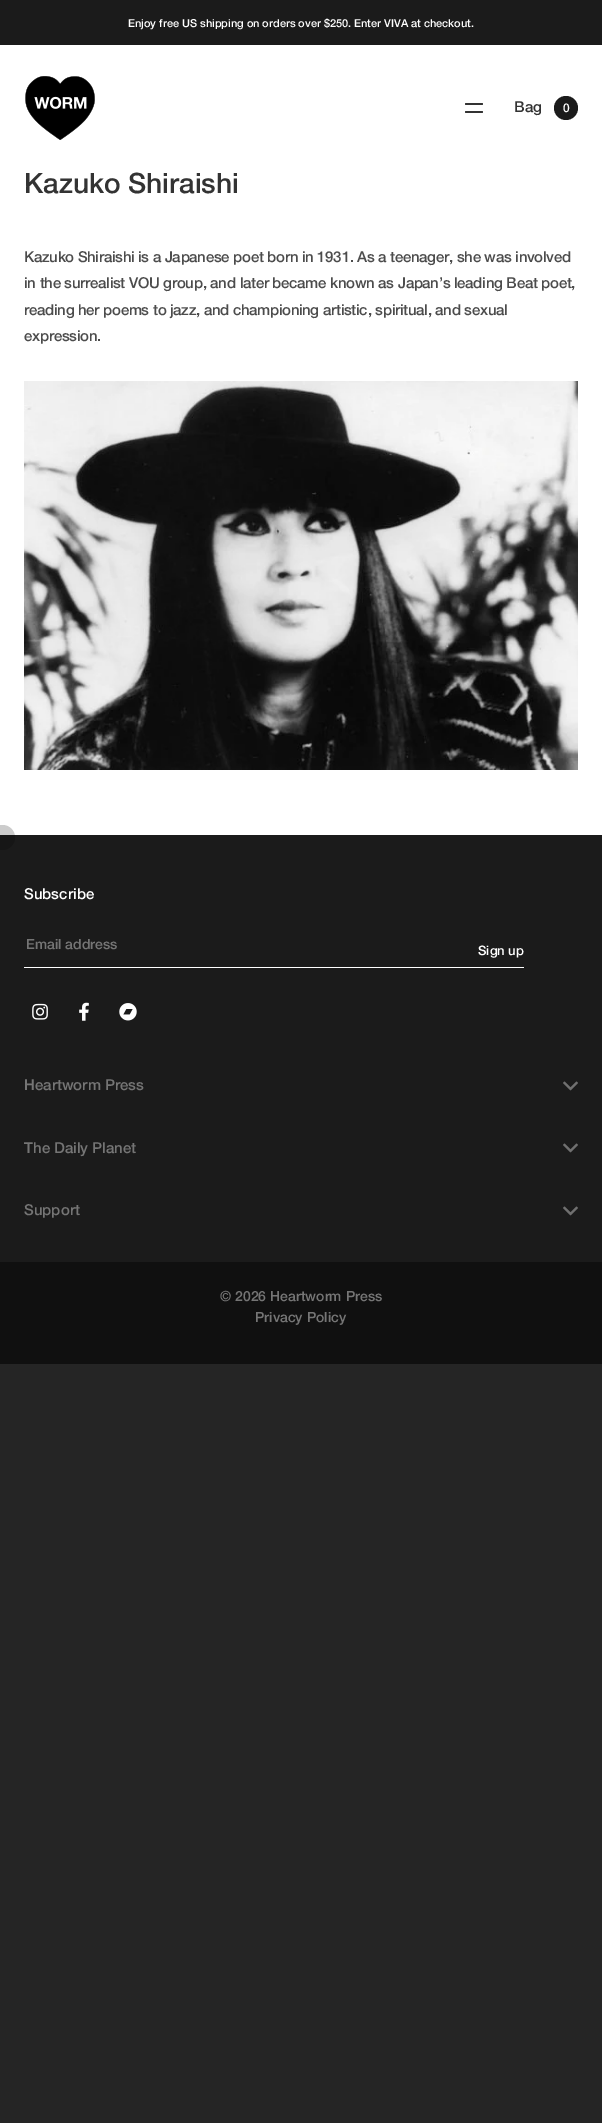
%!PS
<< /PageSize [602 2123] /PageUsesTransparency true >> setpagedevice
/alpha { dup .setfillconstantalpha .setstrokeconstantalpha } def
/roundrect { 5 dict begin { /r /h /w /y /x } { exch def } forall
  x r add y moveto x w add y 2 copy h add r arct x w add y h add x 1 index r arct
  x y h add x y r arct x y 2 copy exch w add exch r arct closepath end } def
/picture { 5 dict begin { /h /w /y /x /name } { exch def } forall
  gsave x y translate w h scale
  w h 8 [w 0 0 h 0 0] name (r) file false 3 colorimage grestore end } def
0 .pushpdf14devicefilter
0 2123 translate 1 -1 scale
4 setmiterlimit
0.145 setgray
0 0 602 2123 rectfill
0.106 setgray
0 0 602 45 rectfill
/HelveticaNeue-Medium [11 0 0 -11 0 0] selectfont
1 setgray
128 27 moveto (Enjoy free US shipping on orders over $250. Enter VIVA at checkout.) show
0 45 602 790 rectfill
(img1.rgb) 25 76 70 64 picture
0.2 setgray
465 103 18 2 1 roundrect fill
465 111 18 2 1 roundrect fill
/HelveticaNeue-Medium [15 0 0 -15 0 0] selectfont
514 112 moveto (Bag) show
0.106 setgray
newpath 566 108 12 0 360 arc closepath fill
/HelveticaNeue-Medium [12 0 0 -12 0 0] selectfont
1 setgray
563 112 moveto (0) show
/HelveticaNeue-Medium [28 0 0 -28 0 0] selectfont
0.2 setgray
24 193 moveto (Kazuko Shiraishi) show
/HelveticaNeue-Medium [15 0 0 -15 0 0] selectfont
0.298 setgray
24 262 moveto -0.3 0 (Kazuko Shiraishi is a Japanese poet born in 1931. As a teenager, she was involved) ashow
24 288 moveto -0.3 0 (in the surrealist VOU group, and later became known as Japan’s leading Beat poet,) ashow
24 315 moveto -0.3 0 (reading her poems to jazz, and championing artistic, spiritual, and sexual) ashow
24 341 moveto -0.3 0 (expression.) ashow
(img2.rgb) 24 381 554 389 picture
0.106 setgray
0 835 602 427 rectfill
0.2 alpha
0 setgray
newpath 2.5 837.5 12.5 0 360 arc closepath fill
1 alpha
1 setgray
24 899 moveto (Subscribe) show
24 967 500 1 rectfill
/HelveticaNeue-Medium [14 0 0 -14 0 0] selectfont
0.459 setgray
26 949 moveto (Email address) show
/HelveticaNeue-Medium [13 0 0 -13 0 0] selectfont
1 setgray
478 955 moveto (Sign up) show
(img3.rgb) 32 1003 16 17 picture
(img4.rgb) 79 1002 10 19 picture
(img5.rgb) 119 1003 18 18 picture
/HelveticaNeue-Medium [15 0 0 -15 0 0] selectfont
0.459 setgray
24 1090 moveto (Heartworm Press) show
(img6.rgb) 563 1081 15 10 picture
24 1153 moveto (The Daily Planet) show
(img6.rgb) 563 1143 15 10 picture
24 1215 moveto (Support) show
(img6.rgb) 563 1206 15 10 picture
0.063 setgray
0 1262 602 102 rectfill
/HelveticaNeue-Medium [14 0 0 -14 0 0] selectfont
0.459 setgray
220 1301 moveto (© 2026 Heartworm Press) show
255 1322 moveto (Privacy Policy) show
.poppdf14devicefilter showpage
